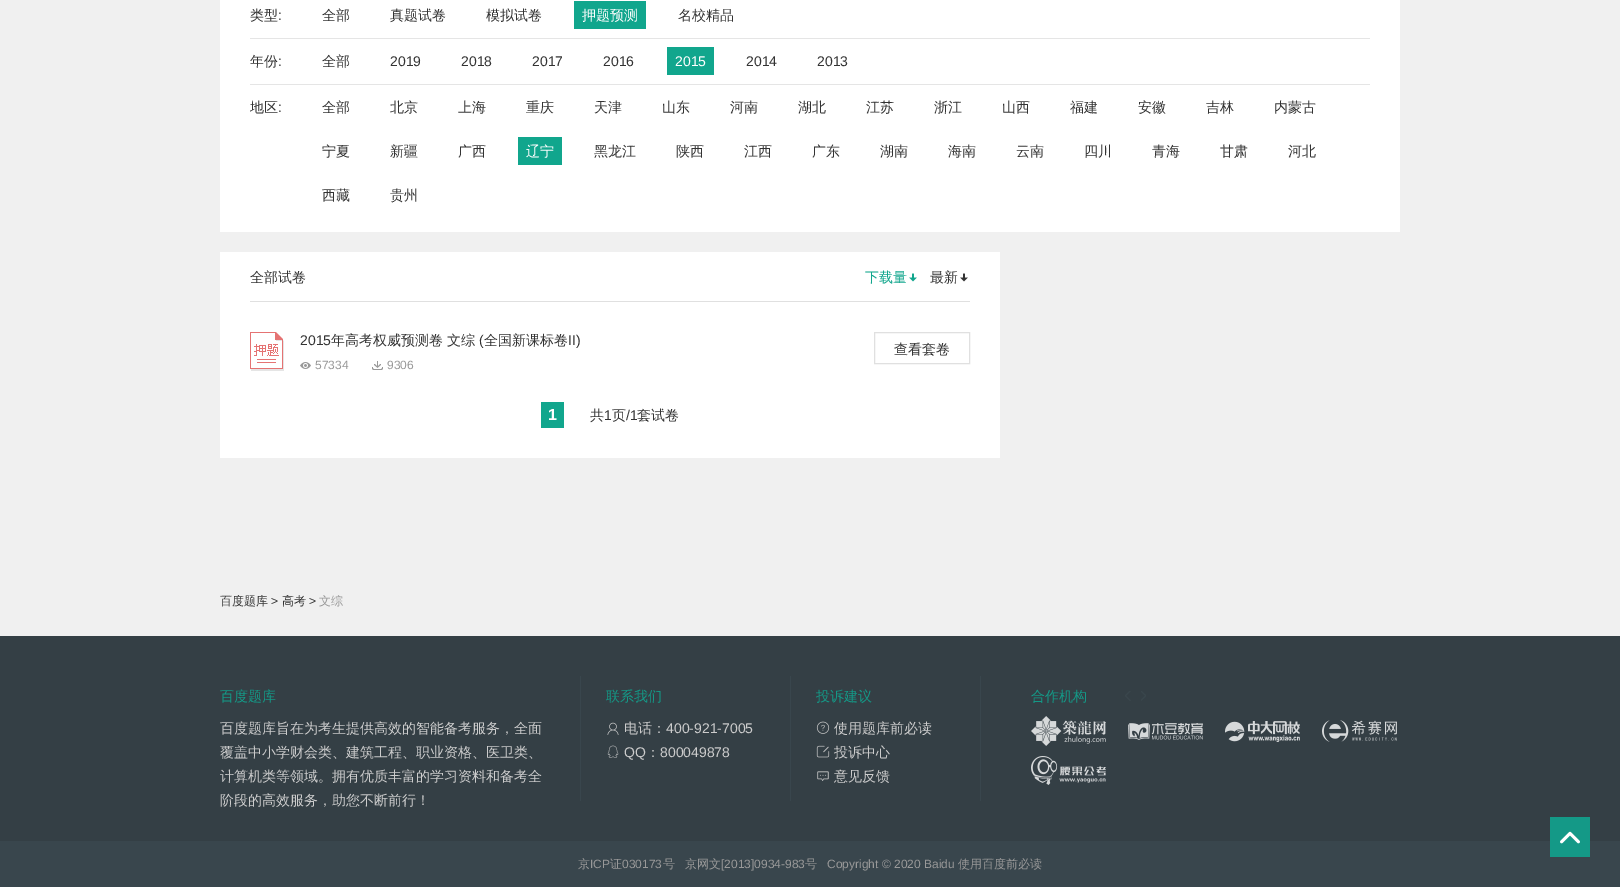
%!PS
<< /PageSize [1620 887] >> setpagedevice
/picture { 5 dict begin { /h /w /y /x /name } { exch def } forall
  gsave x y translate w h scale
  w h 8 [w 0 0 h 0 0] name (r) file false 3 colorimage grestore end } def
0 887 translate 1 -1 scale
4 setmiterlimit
0.941 setgray
0 0 1620 887 rectfill
1 setgray
220 0 1180 232 rectfill
0.898 setgray
250 38 1120 1 rectfill
/WenQuanYiZenHei-Medium [14 0 0 -14 0 0] selectfont
0.2 setgray
250 20 moveto (类型) show
/LiberationSans-Regular [14 0 0 -14 0 0] selectfont
278 20 moveto (:) show
/WenQuanYiZenHei-Medium [14 0 0 -14 0 0] selectfont
322 20 moveto (全部) show
390 20 moveto (真题试卷) show
486 20 moveto (模拟试卷) show
0.067 0.651 0.553 setrgbcolor
574 1 72 28 rectfill
1 setgray
582 20 moveto (押题预测) show
0.2 setgray
678 20 moveto (名校精品) show
0.898 setgray
250 84 1120 1 rectfill
0.2 setgray
250 66 moveto (年份) show
/LiberationSans-Regular [14 0 0 -14 0 0] selectfont
278 66 moveto (:) show
/WenQuanYiZenHei-Medium [14 0 0 -14 0 0] selectfont
322 66 moveto (全部) show
/LiberationSans-Regular [14 0 0 -14 0 0] selectfont
390 66 moveto (2019) show
461 66 moveto (2018) show
532 66 moveto (2017) show
603 66 moveto (2016) show
0.067 0.651 0.553 setrgbcolor
667 47 47 28 rectfill
1 setgray
675 66 moveto (2015) show
0.2 setgray
746 66 moveto (2014) show
817 66 moveto (2013) show
/WenQuanYiZenHei-Medium [14 0 0 -14 0 0] selectfont
250 112 moveto (地区) show
/LiberationSans-Regular [14 0 0 -14 0 0] selectfont
278 112 moveto (:) show
/WenQuanYiZenHei-Medium [14 0 0 -14 0 0] selectfont
322 112 moveto (全部) show
390 112 moveto (北京) show
458 112 moveto (上海) show
526 112 moveto (重庆) show
594 112 moveto (天津) show
662 112 moveto (山东) show
730 112 moveto (河南) show
798 112 moveto (湖北) show
866 112 moveto (江苏) show
934 112 moveto (浙江) show
1002 112 moveto (山西) show
1070 112 moveto (福建) show
1138 112 moveto (安徽) show
1206 112 moveto (吉林) show
1274 112 moveto (内蒙古) show
322 156 moveto (宁夏) show
390 156 moveto (新疆) show
458 156 moveto (广西) show
0.067 0.651 0.553 setrgbcolor
518 137 44 28 rectfill
1 setgray
526 156 moveto (辽宁) show
0.2 setgray
594 156 moveto (黑龙江) show
676 156 moveto (陕西) show
744 156 moveto (江西) show
812 156 moveto (广东) show
880 156 moveto (湖南) show
948 156 moveto (海南) show
1016 156 moveto (云南) show
1084 156 moveto (四川) show
1152 156 moveto (青海) show
1220 156 moveto (甘肃) show
1288 156 moveto (河北) show
322 200 moveto (西藏) show
390 200 moveto (贵州) show
1 setgray
220 252 780 206 rectfill
0.878 setgray
250 301 720 1 rectfill
0.2 setgray
250 282 moveto (全部试卷) show
0.067 0.651 0.553 setrgbcolor
865 282 moveto (下载量) show
(img1.rgb) 909 273 8 9 picture
0.2 setgray
930 282 moveto (最新) show
(img2.rgb) 960 273 8 9 picture
(img3.rgb) 250 332 34 39 picture
/LiberationSans-Regular [14 0 0 -14 0 0] selectfont
300 345 moveto (2015) show
/WenQuanYiZenHei-Medium [14 0 0 -14 0 0] selectfont
331 345 moveto (年高考权威预测卷 文综) show
/LiberationSans-Regular [14 0 0 -14 0 0] selectfont
479 345 moveto (\() show
/WenQuanYiZenHei-Medium [14 0 0 -14 0 0] selectfont
484 345 moveto (全国新课标卷) show
/LiberationSans-Regular [14 0 0 -14 0 0] selectfont
568 345 moveto (II\)) show
(img4.rgb) 300 362 11 7 picture
/LiberationSans-Regular [12 0 0 -12 0 0] selectfont
0.6 setgray
315 369 moveto (57334) show
(img5.rgb) 372 361 11 9 picture
387 369 moveto (9306) show
0.878 setgray
874.5 332.5 95 31 rectstroke
/WenQuanYiZenHei-Medium [14 0 0 -14 0 0] selectfont
0.2 setgray
894 354 moveto (查看套卷) show
0.067 0.651 0.553 setrgbcolor
541 402 23 26 rectfill
/LiberationSans-Bold [16 0 0 -16 0 0] selectfont
1 setgray
548 420 moveto (1) show
/WenQuanYiZenHei-Medium [14 0 0 -14 0 0] selectfont
0.2 setgray
590 420 moveto (共) show
/LiberationSans-Regular [14 0 0 -14 0 0] selectfont
604 420 moveto (1) show
/WenQuanYiZenHei-Medium [14 0 0 -14 0 0] selectfont
612 420 moveto (页) show
/LiberationSans-Regular [14 0 0 -14 0 0] selectfont
626 420 moveto (/1) show
/WenQuanYiZenHei-Medium [14 0 0 -14 0 0] selectfont
637 420 moveto (套试卷) show
0.204 0.247 0.271 setrgbcolor
0 636 1620 205 rectfill
0.224 0.275 0.302 setrgbcolor
0 841 1620 46 rectfill
0.078 0.6 0.529 setrgbcolor
1550 817 40 40 rectfill
(img6.rgb) 1560 831 20 13 picture
/WenQuanYiZenHei-Medium [12 0 0 -12 0 0] selectfont
0.2 setgray
220 605 moveto (百度题库) show
/LiberationSans-Regular [12 0 0 -12 0 0] selectfont
271 605 moveto (>) show
/WenQuanYiZenHei-Medium [12 0 0 -12 0 0] selectfont
282 605 moveto (高考) show
/LiberationSans-Regular [12 0 0 -12 0 0] selectfont
309 605 moveto (>) show
/WenQuanYiZenHei-Medium [12 0 0 -12 0 0] selectfont
0.6 setgray
319 605 moveto (文综) show
0.224 0.275 0.302 setrgbcolor
580 676 1 125 rectfill
/WenQuanYiZenHei-Medium [14 0 0 -14 0 0] selectfont
0.078 0.6 0.529 setrgbcolor
220 701 moveto (百度题库) show
0.8 setgray
220 733 moveto (百度题库旨在为考生提供高效的智能备考服务，全面) show
220 757 moveto (覆盖中小学财会类、建筑工程、职业资格、医卫类、) show
220 781 moveto (计算机类等领域。拥有优质丰富的学习资料和备考全) show
220 805 moveto (阶段的高效服务，助您不断前行！) show
0.224 0.275 0.302 setrgbcolor
790 676 1 125 rectfill
0.078 0.6 0.529 setrgbcolor
606 701 moveto (联系我们) show
(img7.rgb) 607 722 12 13 picture
0.8 setgray
624 733 moveto (电话：) show
/LiberationSans-Regular [14 0 0 -14 0 0] selectfont
666 733 moveto (400-921-7005) show
(img8.rgb) 607 745 12 13 picture
624 757 moveto (QQ) show
/WenQuanYiZenHei-Medium [14 0 0 -14 0 0] selectfont
646 757 moveto (：) show
/LiberationSans-Regular [14 0 0 -14 0 0] selectfont
660 757 moveto (800049878) show
0.224 0.275 0.302 setrgbcolor
980 676 1 125 rectfill
/WenQuanYiZenHei-Medium [14 0 0 -14 0 0] selectfont
0.078 0.6 0.529 setrgbcolor
816 701 moveto (投诉建议) show
(img9.rgb) 816 721 14 13 picture
0.8 setgray
834 733 moveto (使用题库前必读) show
(img10.rgb) 816 745 14 13 picture
834 757 moveto (投诉中心) show
(img11.rgb) 817 771 12 10 picture
834 781 moveto (意见反馈) show
0.078 0.6 0.529 setrgbcolor
1031 701 moveto (合作机构) show
(img12.rgb) 1125 691 6 10 picture
(img13.rgb) 1141 691 5 10 picture
(img14.rgb) 1031 716 75 30 picture
(img15.rgb) 1128 723 75 17 picture
(img16.rgb) 1225 721 75 21 picture
(img17.rgb) 1322 720 75 22 picture
(img18.rgb) 1031 756 75 29 picture
/WenQuanYiZenHei-Medium [12 0 0 -12 0 0] selectfont
0.6 setgray
578 868 moveto (京) show
/LiberationSans-Regular [12 0 0 -12 0 0] selectfont
590 868 moveto (ICP) show
/WenQuanYiZenHei-Medium [12 0 0 -12 0 0] selectfont
610 868 moveto (证) show
/LiberationSans-Regular [12 0 0 -12 0 0] selectfont
622 868 moveto (030173) show
/WenQuanYiZenHei-Medium [12 0 0 -12 0 0] selectfont
663 868 moveto (号) show
685 868 moveto (京网文) show
/LiberationSans-Regular [12 0 0 -12 0 0] selectfont
721 868 moveto ([2013]0934-983) show
/WenQuanYiZenHei-Medium [12 0 0 -12 0 0] selectfont
805 868 moveto (号) show
/LiberationSans-Regular [12 0 0 -12 0 0] selectfont
827 868 moveto (Copyright © 2020 Baidu) show
/WenQuanYiZenHei-Medium [12 0 0 -12 0 0] selectfont
958 868 moveto (使用百度前必读) show
showpage
